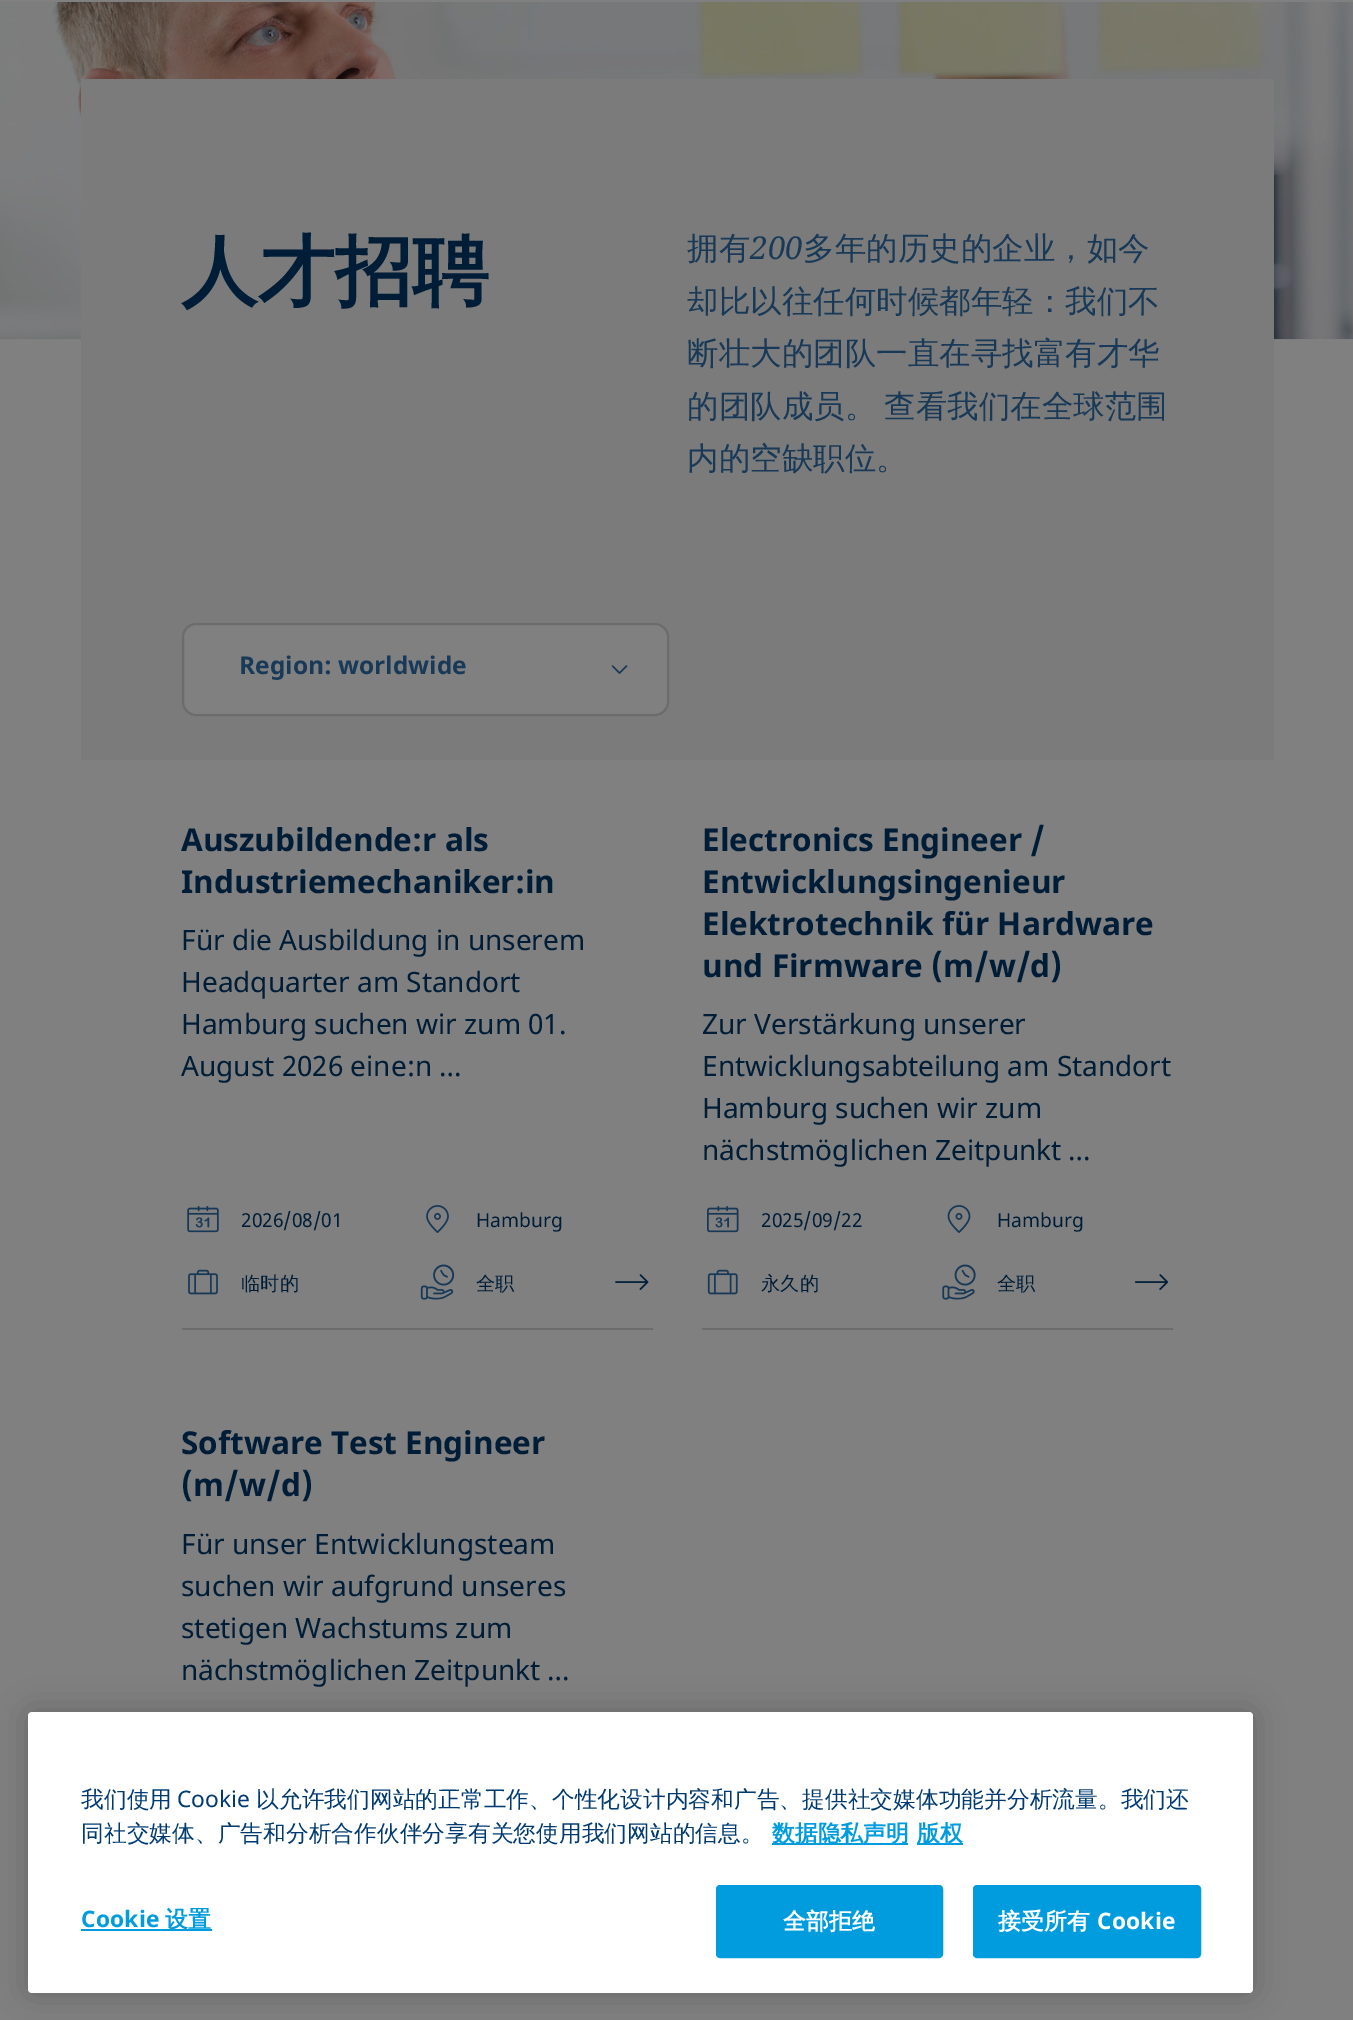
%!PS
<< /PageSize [1353 2020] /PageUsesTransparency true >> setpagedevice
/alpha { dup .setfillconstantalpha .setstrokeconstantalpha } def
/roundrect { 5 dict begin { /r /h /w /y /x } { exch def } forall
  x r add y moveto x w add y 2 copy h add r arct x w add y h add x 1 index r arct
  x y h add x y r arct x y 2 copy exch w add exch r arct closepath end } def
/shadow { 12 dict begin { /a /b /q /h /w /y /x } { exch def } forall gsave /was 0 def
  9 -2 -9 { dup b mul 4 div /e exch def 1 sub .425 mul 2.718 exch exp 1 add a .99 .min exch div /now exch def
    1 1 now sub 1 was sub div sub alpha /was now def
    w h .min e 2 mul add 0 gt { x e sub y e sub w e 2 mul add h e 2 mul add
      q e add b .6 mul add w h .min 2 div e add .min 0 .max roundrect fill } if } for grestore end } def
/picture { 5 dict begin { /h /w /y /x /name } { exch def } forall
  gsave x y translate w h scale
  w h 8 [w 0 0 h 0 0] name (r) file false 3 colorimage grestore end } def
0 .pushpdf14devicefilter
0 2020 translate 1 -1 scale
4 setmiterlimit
0.502 setgray
0 0 1353 2020 rectfill
(img1.rgb) 0 2 1353 338 picture
0.482 setgray
81 79 1193 681 rectfill
/WenQuanYiZenHei-Bold [77 0 0 -77 0 0] selectfont
0 0.114 0.22 setrgbcolor
181 298 moveto (人才招聘) show
/WenQuanYiZenHei-Medium [31.5 0 0 -31.5 0 0] selectfont
0.094 0.224 0.341 setrgbcolor
687 259 moveto (拥有) show
/NotoSerif-Italic [31.5 0 0 -31.5 0 0] selectfont
750 259 moveto (200) show
/WenQuanYiZenHei-Medium [31.5 0 0 -31.5 0 0] selectfont
803 259 moveto (多年的历史的企业，如今) show
687 312 moveto (却比以往任何时候都年轻：我们不) show
687 364 moveto (断壮大的团队一直在寻找富有才华) show
687 417 moveto -1 0 32 (的团队成员。 查看我们在全球范围) widthshow
687 469 moveto (内的空缺职位。) show
0.502 setgray
183 624 485 91 13 roundrect gsave fill grestore
0.42 0.427 0.427 setrgbcolor
2 setlinewidth
stroke
/NotoSans-Bold [24.5 0 0 -24.5 0 0] selectfont
0.094 0.224 0.341 setrgbcolor
239 674 moveto (Region: worldwide) show
(img2.rgb) 611 665 17 9 picture
/NotoSans-Bold [31.5 0 0 -31.5 0 0] selectfont
0 0.114 0.22 setrgbcolor
181 851 moveto (Auszubildende:r als) show
181 893 moveto (Industriemechaniker:in) show
/NotoSans-Regular [28 0 0 -28 0 0] selectfont
181 950 moveto (Für die Ausbildung in unserem) show
181 992 moveto (Headquarter am Standort) show
181 1034 moveto (Hamburg suchen wir zum 01.) show
181 1076 moveto (August 2026 eine:n …) show
0.42 0.427 0.427 setrgbcolor
182 1328 471 2 rectfill
(img3.rgb) 187 1206 32 27 picture
/NotoSans-Regular [19.25 0 0 -19.25 0 0] selectfont
0 0.114 0.22 setrgbcolor
241 1227 moveto (2026/08/01) show
(img4.rgb) 426 1205 23 28 picture
476 1227 moveto (Hamburg) show
(img5.rgb) 188 1269 30 26 picture
/WenQuanYiZenHei-Medium [19.25 0 0 -19.25 0 0] selectfont
241 1290 moveto (临时的) show
(img6.rgb) 420 1264 35 36 picture
476 1290 moveto (全职) show
(img7.rgb) 615 1274 34 16 picture
/NotoSans-Bold [31.5 0 0 -31.5 0 0] selectfont
702 851 moveto (Electronics Engineer /) show
702 893 moveto (Entwicklungsingenieur) show
702 935 moveto (Elektrotechnik für Hardware) show
702 977 moveto (und Firmware \(m/w/d\)) show
/NotoSans-Regular [28 0 0 -28 0 0] selectfont
702 1034 moveto (Zur Verstärkung unserer) show
702 1076 moveto (Entwicklungsabteilung am Standort) show
702 1118 moveto (Hamburg suchen wir zum) show
702 1160 moveto (nächstmöglichen Zeitpunkt …) show
0.42 0.427 0.427 setrgbcolor
702 1328 471 2 rectfill
(img8.rgb) 707 1206 32 27 picture
/NotoSans-Regular [19.25 0 0 -19.25 0 0] selectfont
0 0.114 0.22 setrgbcolor
761 1227 moveto (2025/09/22) show
(img9.rgb) 947 1205 24 28 picture
997 1227 moveto (Hamburg) show
(img10.rgb) 707 1269 31 26 picture
/WenQuanYiZenHei-Medium [19.25 0 0 -19.25 0 0] selectfont
761 1290 moveto (永久的) show
(img11.rgb) 942 1264 34 36 picture
997 1290 moveto (全职) show
(img12.rgb) 1134 1274 35 16 picture
/NotoSans-Bold [31.5 0 0 -31.5 0 0] selectfont
181 1454 moveto (Software Test Engineer) show
181 1496 moveto (\(m/w/d\)) show
/NotoSans-Regular [28 0 0 -28 0 0] selectfont
181 1554 moveto (Für unser Entwicklungsteam) show
181 1596 moveto (suchen wir aufgrund unseres) show
181 1638 moveto (stetigen Wachstums zum) show
181 1680 moveto (nächstmöglichen Zeitpunkt …) show
0 setgray
28 1712 1225 281 4 16 0.2 shadow
1 setgray
28 1712 1225 281 4 roundrect fill
/WenQuanYiZenHei-Medium [22.75 0 0 -22.75 0 0] selectfont
0 0.227 0.439 setrgbcolor
81 1807 moveto (我们使用) show
/NotoSans-Regular [22.75 0 0 -22.75 0 0] selectfont
177 1807 moveto (Cookie) show
/WenQuanYiZenHei-Medium [22.75 0 0 -22.75 0 0] selectfont
256 1807 moveto (以允许我们网站的正常工作、个性化设计内容和广告、提供社交媒体功能并分析流量。我们还) show
81 1841 moveto (同社交媒体、广告和分析合作伙伴分享有关您使用我们网站的信息。) show
0 0.612 0.871 setrgbcolor
772 1843 136 2 rectfill
/WenQuanYiZenHei-Bold [22.75 0 0 -22.75 0 0] selectfont
772 1841 moveto (数据隐私声明) show
917 1843 46 2 rectfill
917 1841 moveto (版权) show
/NotoSans-Bold [22.75 0 0 -22.75 0 0] selectfont
81 1927 moveto 0.25 0 (Cookie) ashow
81 1929 131 2 rectfill
/WenQuanYiZenHei-Bold [22.75 0 0 -22.75 0 0] selectfont
165 1927 moveto 0.25 0 (设置) ashow
717 1886 225 71 3 roundrect gsave fill grestore
stroke
1 setgray
783 1929 moveto 0.25 0 (全部拒绝) ashow
0 0.612 0.871 setrgbcolor
974 1886 226 71 3 roundrect gsave fill grestore
stroke
1 setgray
998 1929 moveto 0.25 0 (接受所有) ashow
/NotoSans-Bold [22.75 0 0 -22.75 0 0] selectfont
1097 1929 moveto 0.25 0 (Cookie) ashow
.poppdf14devicefilter showpage
